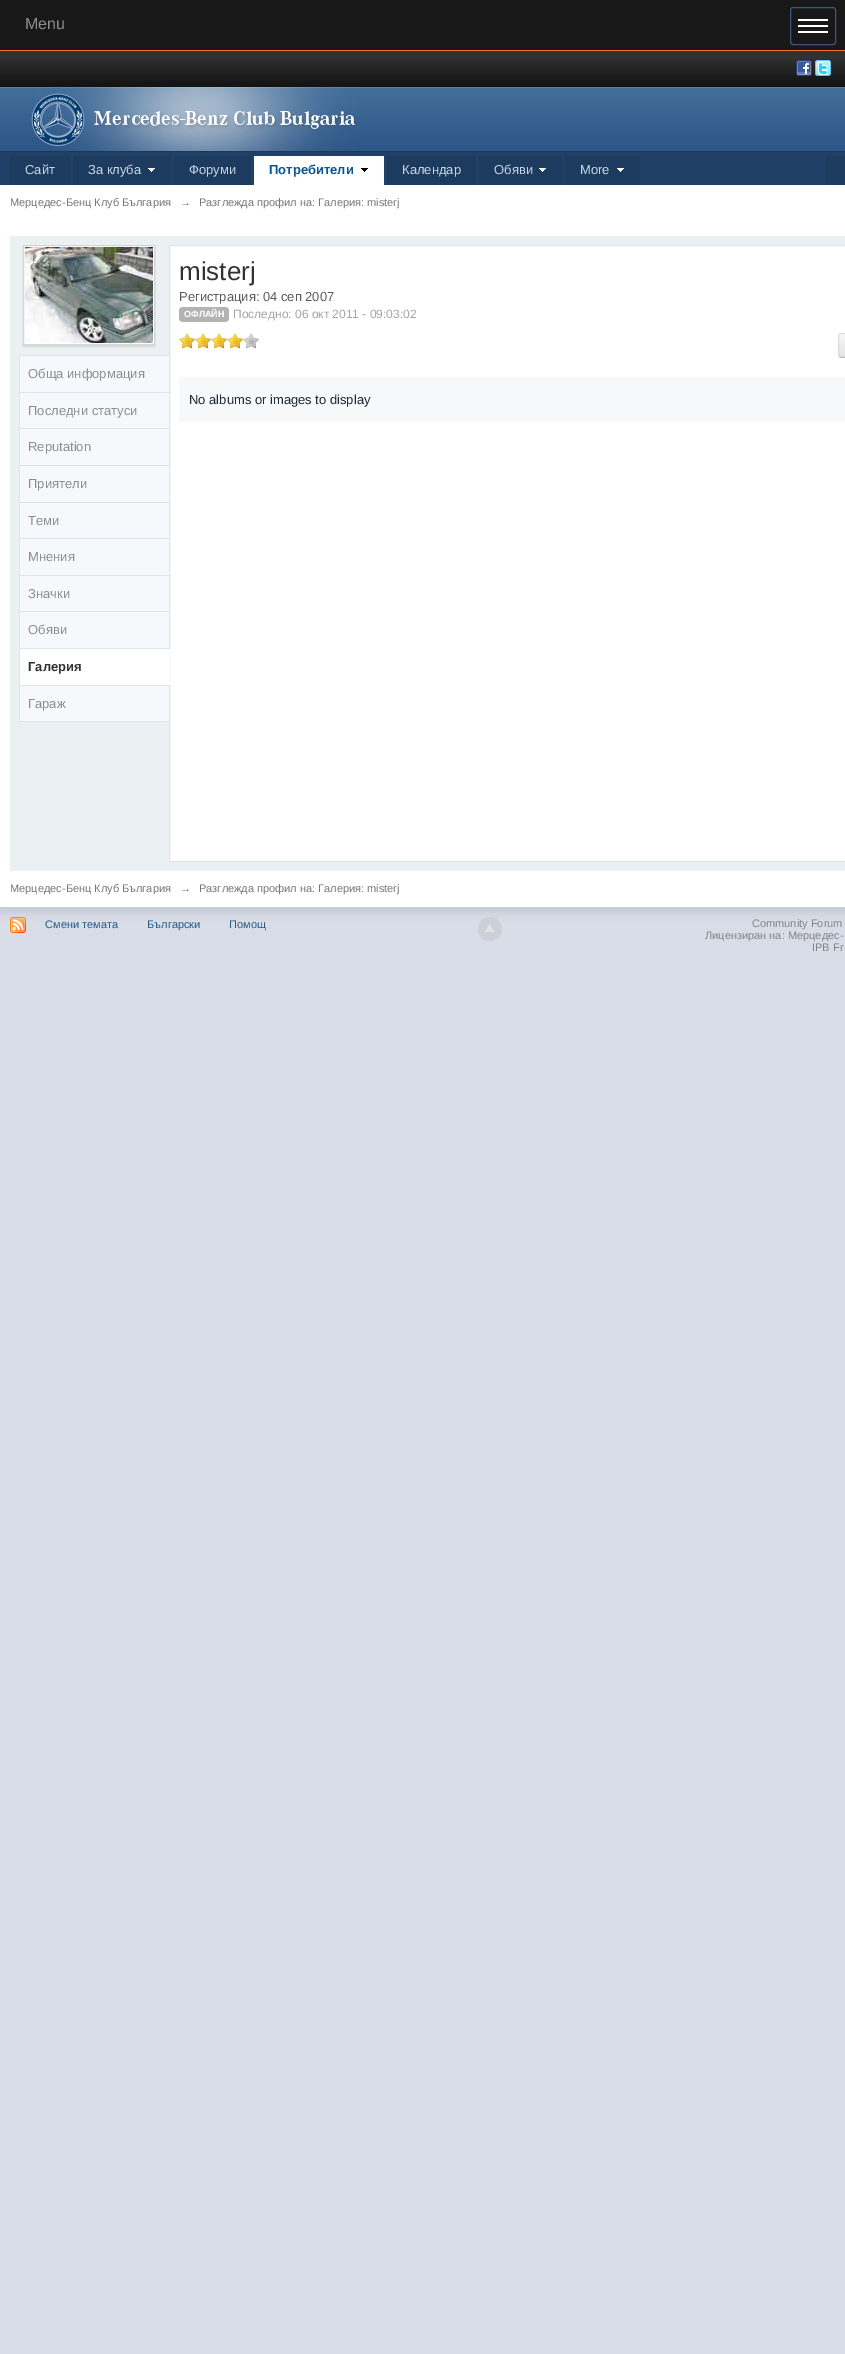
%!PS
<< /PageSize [845 2354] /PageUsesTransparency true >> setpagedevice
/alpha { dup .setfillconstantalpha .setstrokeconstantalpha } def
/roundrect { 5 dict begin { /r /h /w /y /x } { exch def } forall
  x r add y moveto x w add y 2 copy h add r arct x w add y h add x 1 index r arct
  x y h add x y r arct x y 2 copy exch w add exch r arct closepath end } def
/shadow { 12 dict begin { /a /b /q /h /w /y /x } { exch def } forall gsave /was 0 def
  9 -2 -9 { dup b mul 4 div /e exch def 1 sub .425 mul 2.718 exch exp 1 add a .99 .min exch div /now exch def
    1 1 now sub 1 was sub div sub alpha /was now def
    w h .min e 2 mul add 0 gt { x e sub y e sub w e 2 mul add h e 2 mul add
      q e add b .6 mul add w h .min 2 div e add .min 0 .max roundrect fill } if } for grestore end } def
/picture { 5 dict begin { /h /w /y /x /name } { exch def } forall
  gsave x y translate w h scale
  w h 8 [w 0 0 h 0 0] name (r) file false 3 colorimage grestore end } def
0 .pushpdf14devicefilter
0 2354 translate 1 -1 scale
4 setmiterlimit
0.847 0.867 0.91 setrgbcolor
0 0 845 2354 rectfill
0.094 setgray
0 0 845 50 rectfill
0.988 0.427 0.196 setrgbcolor
0 50 845 1 rectfill
/LiberationSans-Regular [16 0 0 -16 0 0] selectfont
0.553 setgray
25 29 moveto (Menu) show
0.243 0.345 0.482 setrgbcolor
790.5 7.5 45 37 2.5 roundrect stroke
1 setgray
798 19 30 2 rectfill
798 25 30 2 rectfill
798 31 30 2 rectfill
0.196 setgray
0 51 845 8 rectfill
(img1.rgb) 0 59 845 28 picture
(img2.rgb) 796 60 16 16 picture
(img3.rgb) 815 60 16 16 picture
(img4.rgb) 0 87 845 64 picture
0.106 0.216 0.349 setrgbcolor
0 151 845 1 rectfill
(img5.rgb) 31 87 326 64 picture
0.125 0.251 0.4 setrgbcolor
0 152 845 33 rectfill
0 setgray
0 190 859 722 0 4.5 0.1 shadow
0.11 0.231 0.373 setrgbcolor
10 156 60 29 rectfill
/LiberationSans-Regular [13 0 0 -13 0 0] selectfont
0.773 0.835 0.886 setrgbcolor
25 174 moveto (Сайт) show
0.11 0.231 0.373 setrgbcolor
73 156 98 29 rectfill
(img6.rgb) 148 168 7 4 picture
0.773 0.835 0.886 setrgbcolor
88 174 moveto (За клуба) show
0.11 0.231 0.373 setrgbcolor
174 156 77 29 rectfill
0.773 0.835 0.886 setrgbcolor
189 174 moveto (Форуми) show
1 setgray
254 156 130 29 rectfill
(img7.rgb) 361 168 7 4 picture
/LiberationSans-Bold [13 0 0 -13 0 0] selectfont
0.043 0.341 0.58 setrgbcolor
269 174 moveto (Потребители) show
0.11 0.231 0.373 setrgbcolor
387 156 89 29 rectfill
/LiberationSans-Regular [13 0 0 -13 0 0] selectfont
0.773 0.835 0.886 setrgbcolor
402 174 moveto (Календар) show
0.11 0.231 0.373 setrgbcolor
479 156 83 29 rectfill
(img6.rgb) 539 168 7 4 picture
0.773 0.835 0.886 setrgbcolor
494 174 moveto (Обяви) show
0.11 0.231 0.373 setrgbcolor
565 156 75 29 rectfill
(img6.rgb) 617 168 7 4 picture
0.773 0.835 0.886 setrgbcolor
580 174 moveto (More) show
0.11 0.231 0.373 setrgbcolor
826 156 19 29 rectfill
1 setgray
0 185 845 722 rectfill
/LiberationSans-Regular [11 0 0 -11 0 0] selectfont
0.467 setgray
10 206 moveto (Мерцедес-Бенц Клуб България) show
180 206 moveto (→) show
199 206 moveto (Разглежда профил на: Галерия: misterj) show
0.922 0.941 0.953 setrgbcolor
10 236 835 635 rectfill
1 setgray
newpath 169.5 245.5 moveto 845.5 245.5 lineto 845.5 861.5 lineto 169.5 861.5 lineto closepath gsave fill grestore
0.859 0.894 0.937 setrgbcolor
stroke
/LiberationSans-Regular [26 0 0 -26 0 0] selectfont
0.196 setgray
179 280 moveto (misterj) show
/LiberationSans-Regular [13 0 0 -13 0 0] selectfont
0.353 setgray
179 301 moveto (Регистрация: 04 сеп 2007) show
0.702 setgray
179 307 50 15 4 roundrect fill
/LiberationSans-Bold [9 0 0 -9 0 0] selectfont
1 setgray
184 317 moveto (ОФЛАЙН) show
/LiberationSans-Regular [12 0 0 -12 0 0] selectfont
0.643 setgray
233 318 moveto (Последно: 06 окт 2011 - 09:03:02) show
(img8.rgb) 179 333 16 16 picture
(img8.rgb) 195 333 16 16 picture
(img8.rgb) 211 333 16 16 picture
(img8.rgb) 227 333 16 16 picture
(img9.rgb) 243 333 16 16 picture
0.702 setgray
newpath 838 354 moveto 838 356 839 358 841 358 curveto 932 358 lineto 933 358 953 363 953 354 curveto 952 356 lineto 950 357 lineto 841 357 lineto 839 357 838 356 838 354 curveto closepath fill
gsave
838 333 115 24 3 roundrect clip newpath
gsave newpath 838 334 moveto 845 334 lineto 845 356 lineto 838 356 lineto closepath clip newpath
<< /ShadingType 2 /ColorSpace /DeviceRGB /Coords [839 334 839 356] /Extend [true true] /Function << /FunctionType 2 /Domain [0 1] /C0 [0.965 0.965 0.965] /C1 [0.898 0.898 0.898] /N 1 >> >> shfill grestore
grestore
1 setgray
newpath 841 335 moveto 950 335 lineto 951 335 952 336 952 337 curveto 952 336 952 334 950 334 curveto 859 334 lineto 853 334 839 330 839 337 curveto 839 336 840 335 841 335 curveto closepath fill
0.859 setgray
838.5 333.5 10 23 2.5 roundrect stroke
0.965 0.973 0.98 setrgbcolor
179 377 666 45 rectfill
/LiberationSans-Regular [13 0 0 -13 0 0] selectfont
0.11 0.157 0.216 setrgbcolor
189 404 moveto (No albums or images to display) show
0 setgray
23 247 132 100 0 1 0.1 shadow
1 setgray
newpath 23.5 245.5 moveto 154.5 245.5 lineto 154.5 344.5 lineto 23.5 344.5 lineto closepath gsave fill grestore
0.835 setgray
stroke
(img10.rgb) 25 247 128 96 picture
0.859 0.894 0.937 setrgbcolor
19 355 150 1 rectfill
19 355 1 367 rectfill
0.965 0.973 0.984 setrgbcolor
20 356 149 36 rectfill
0.859 0.894 0.937 setrgbcolor
20 392 149 1 rectfill
0.553 setgray
28 378 moveto (Обща информация) show
0.965 0.973 0.984 setrgbcolor
20 393 149 35 rectfill
0.859 0.894 0.937 setrgbcolor
20 428 149 1 rectfill
0.553 setgray
28 415 moveto (Последни статуси) show
0.965 0.973 0.984 setrgbcolor
20 429 149 36 rectfill
0.859 0.894 0.937 setrgbcolor
20 465 149 1 rectfill
0.553 setgray
28 451 moveto (Reputation) show
0.965 0.973 0.984 setrgbcolor
20 466 149 36 rectfill
0.859 0.894 0.937 setrgbcolor
20 502 149 1 rectfill
0.553 setgray
28 488 moveto (Приятели) show
0.965 0.973 0.984 setrgbcolor
20 503 149 35 rectfill
0.859 0.894 0.937 setrgbcolor
20 538 149 1 rectfill
0.553 setgray
28 525 moveto (Теми) show
0.965 0.973 0.984 setrgbcolor
20 539 149 36 rectfill
0.859 0.894 0.937 setrgbcolor
20 575 149 1 rectfill
0.553 setgray
28 561 moveto (Мнения) show
0.965 0.973 0.984 setrgbcolor
20 576 149 35 rectfill
0.859 0.894 0.937 setrgbcolor
20 611 149 1 rectfill
0.553 setgray
28 598 moveto (Значки) show
0.965 0.973 0.984 setrgbcolor
20 612 149 36 rectfill
0.859 0.894 0.937 setrgbcolor
20 648 149 1 rectfill
0.553 setgray
28 634 moveto (Обяви) show
0.859 0.894 0.937 setrgbcolor
20 685 149 1 rectfill
1 setgray
20 649 150 36 rectfill
/LiberationSans-Bold [13 0 0 -13 0 0] selectfont
0.196 setgray
28 671 moveto (Галерия) show
0.965 0.973 0.984 setrgbcolor
20 686 149 35 rectfill
0.859 0.894 0.937 setrgbcolor
20 721 149 1 rectfill
/LiberationSans-Regular [13 0 0 -13 0 0] selectfont
0.553 setgray
28 708 moveto (Гараж) show
/LiberationSans-Regular [11 0 0 -11 0 0] selectfont
0.467 setgray
10 892 moveto (Мерцедес-Бенц Клуб България) show
180 892 moveto (→) show
199 892 moveto (Разглежда профил на: Галерия: misterj) show
(img11.rgb) 10 917 16 16 picture
0.133 0.349 0.522 setrgbcolor
45 928 moveto (Смени темата) show
147 928 moveto (Български) show
229 928 moveto (Помощ) show
0.4 alpha
0.741 setgray
newpath 490 929 12 0 360 arc closepath fill
1 alpha
(img12.rgb) 485 924 10 8 picture
0.518 setgray
752 927 moveto (Community Forum) show
705 939 moveto (Лицензиран на: Мерцедес-) show
812 951 moveto (IPB Fr) show
.poppdf14devicefilter showpage
